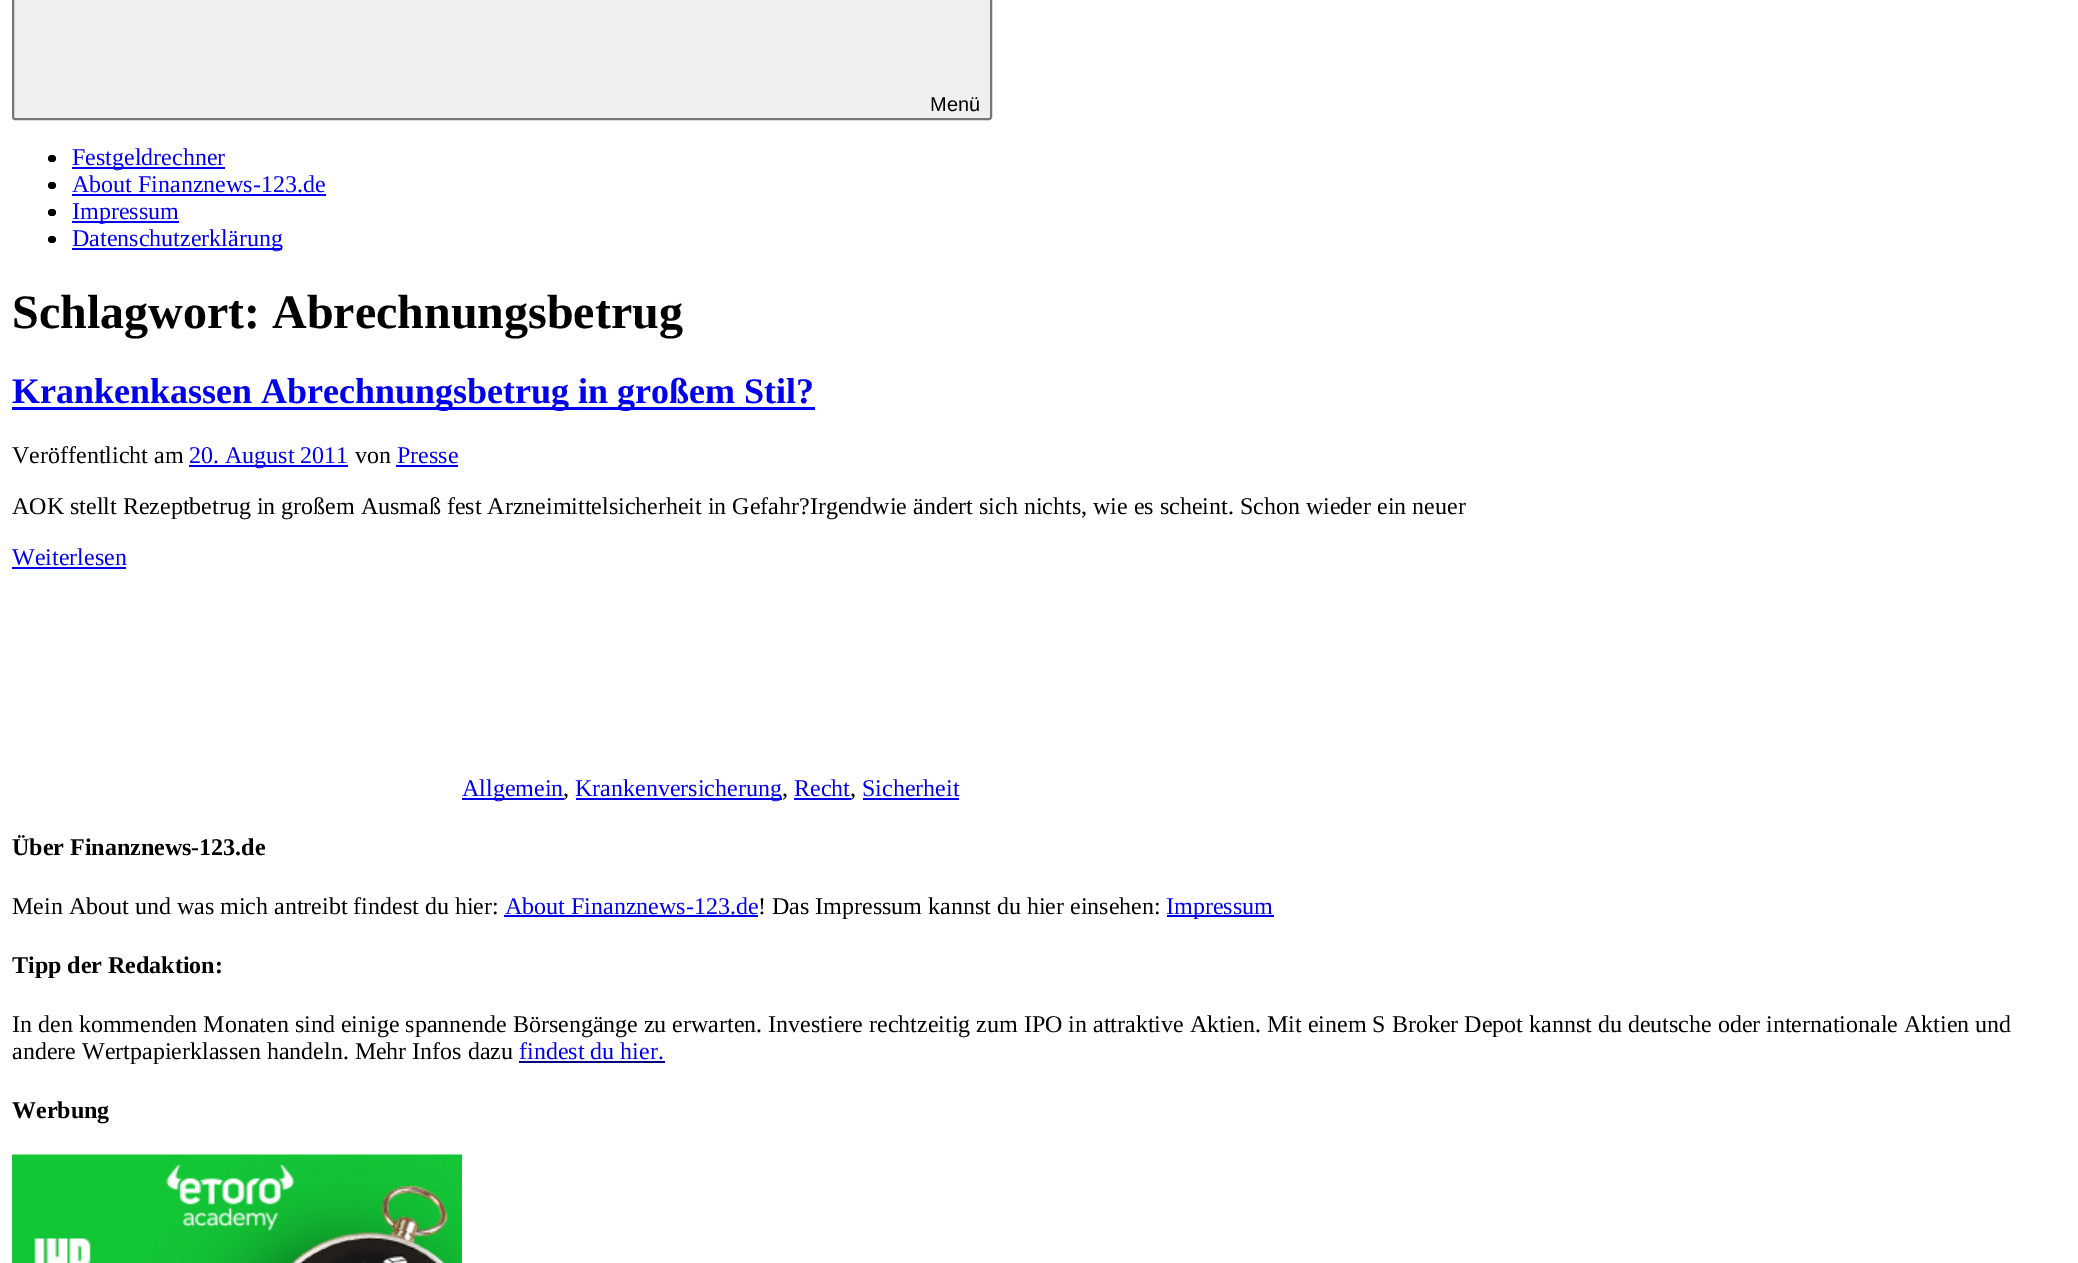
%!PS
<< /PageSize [2078 1263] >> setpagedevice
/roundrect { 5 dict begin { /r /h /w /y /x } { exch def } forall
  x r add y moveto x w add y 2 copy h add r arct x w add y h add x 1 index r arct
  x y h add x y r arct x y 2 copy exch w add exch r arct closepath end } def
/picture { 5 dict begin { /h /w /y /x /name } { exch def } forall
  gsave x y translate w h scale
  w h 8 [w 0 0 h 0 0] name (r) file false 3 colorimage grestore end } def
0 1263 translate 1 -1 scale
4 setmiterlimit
1 setgray
0 0 2078 1263 rectfill
0.937 setgray
13 -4 978 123 2 roundrect gsave fill grestore
0.463 setgray
2 setlinewidth
stroke
/LiberationSans-Regular [20 0 0 -20 0 0] selectfont
0 setgray
930 111 moveto (Menü) show
48 155 8 7 3.5 roundrect fill
0 0 0.933 setrgbcolor
72 167 153 2 rectfill
/LiberationSerif-Regular [24 0 0 -24 0 0] selectfont
72 165 moveto (Festgeldrechner) show
0 setgray
48 182 8 7 3.5 roundrect fill
0 0 0.933 setrgbcolor
72 192 moveto (About Finanznews-123.de) show
72 194 254 2 rectfill
0 setgray
48 209 8 7 3.5 roundrect fill
0 0 0.933 setrgbcolor
72 221 107 2 rectfill
72 219 moveto (Impressum) show
0 setgray
48 236 8 7 3.5 roundrect fill
0 0 0.933 setrgbcolor
72 248 210 2 rectfill
72 246 moveto (Datenschutzerklärung) show
/LiberationSerif-Bold [48 0 0 -48 0 0] selectfont
0 setgray
12 328 moveto (Schlagwort: Abrechnungsbetrug) show
0 0 0.933 setrgbcolor
12 407 803 3 rectfill
/LiberationSerif-Bold [36 0 0 -36 0 0] selectfont
12 403 moveto (Krankenkassen Abrechnungsbetrug in großem Stil?) show
/LiberationSerif-Regular [24 0 0 -24 0 0] selectfont
0 setgray
12 463 moveto (Veröffentlicht am) show
0 0 0.933 setrgbcolor
189 465 159 2 rectfill
189 463 moveto (20. August 2011) show
0 setgray
355 463 moveto (von) show
0 0 0.933 setrgbcolor
397 463 moveto (Presse) show
396 465 62 2 rectfill
0 setgray
12 514 moveto (AOK stellt Rezeptbetrug in großem Ausmaß fest Arzneimittelsicherheit in Gefahr?Irgendwie ändert sich nichts, wie es scheint. Schon wieder ein neuer) show
0 0 0.933 setrgbcolor
12 565 moveto (Weiterlesen) show
12 567 114 2 rectfill
462 798 102 2 rectfill
462 796 moveto (Allgemein) show
0 setgray
563 796 moveto (,) show
0 0 0.933 setrgbcolor
576 798 206 2 rectfill
575 796 moveto (Krankenversicherung) show
0 setgray
782 796 moveto (,) show
0 0 0.933 setrgbcolor
794 796 moveto (Recht) show
794 798 57 2 rectfill
0 setgray
850 796 moveto (,) show
0 0 0.933 setrgbcolor
862 796 moveto (Sicherheit) show
863 798 96 2 rectfill
/LiberationSerif-Bold [24 0 0 -24 0 0] selectfont
0 setgray
12 855 moveto (Über Finanznews-123.de) show
/LiberationSerif-Regular [24 0 0 -24 0 0] selectfont
12 914 moveto (Mein About und was mich antreibt findest du hier:) show
0 0 0.933 setrgbcolor
505 914 moveto (About Finanznews-123.de) show
504 915 254 2 rectfill
0 setgray
758 914 moveto (! Das Impressum kannst du hier einsehen:) show
0 0 0.933 setrgbcolor
1167 915 107 2 rectfill
1166 914 moveto (Impressum) show
/LiberationSerif-Bold [24 0 0 -24 0 0] selectfont
0 setgray
12 973 moveto (Tipp der Redaktion:) show
/LiberationSerif-Regular [24 0 0 -24 0 0] selectfont
12 1032 moveto (In den kommenden Monaten sind einige spannende Börsengänge zu erwarten. Investiere rechtzeitig zum IPO in attraktive Aktien. Mit einem S Broker Depot kannst du deutsche oder internationale Aktien und) show
12 1059 moveto (andere Wertpapierklassen handeln. Mehr Infos dazu) show
0 0 0.933 setrgbcolor
519 1059 moveto (findest du hier.) show
0 0 0.502 setrgbcolor
519 1061 146 2 rectfill
/LiberationSerif-Bold [24 0 0 -24 0 0] selectfont
0 setgray
12 1118 moveto (Werbung) show
(img1.rgb) 12 1154 450 109 picture
showpage
